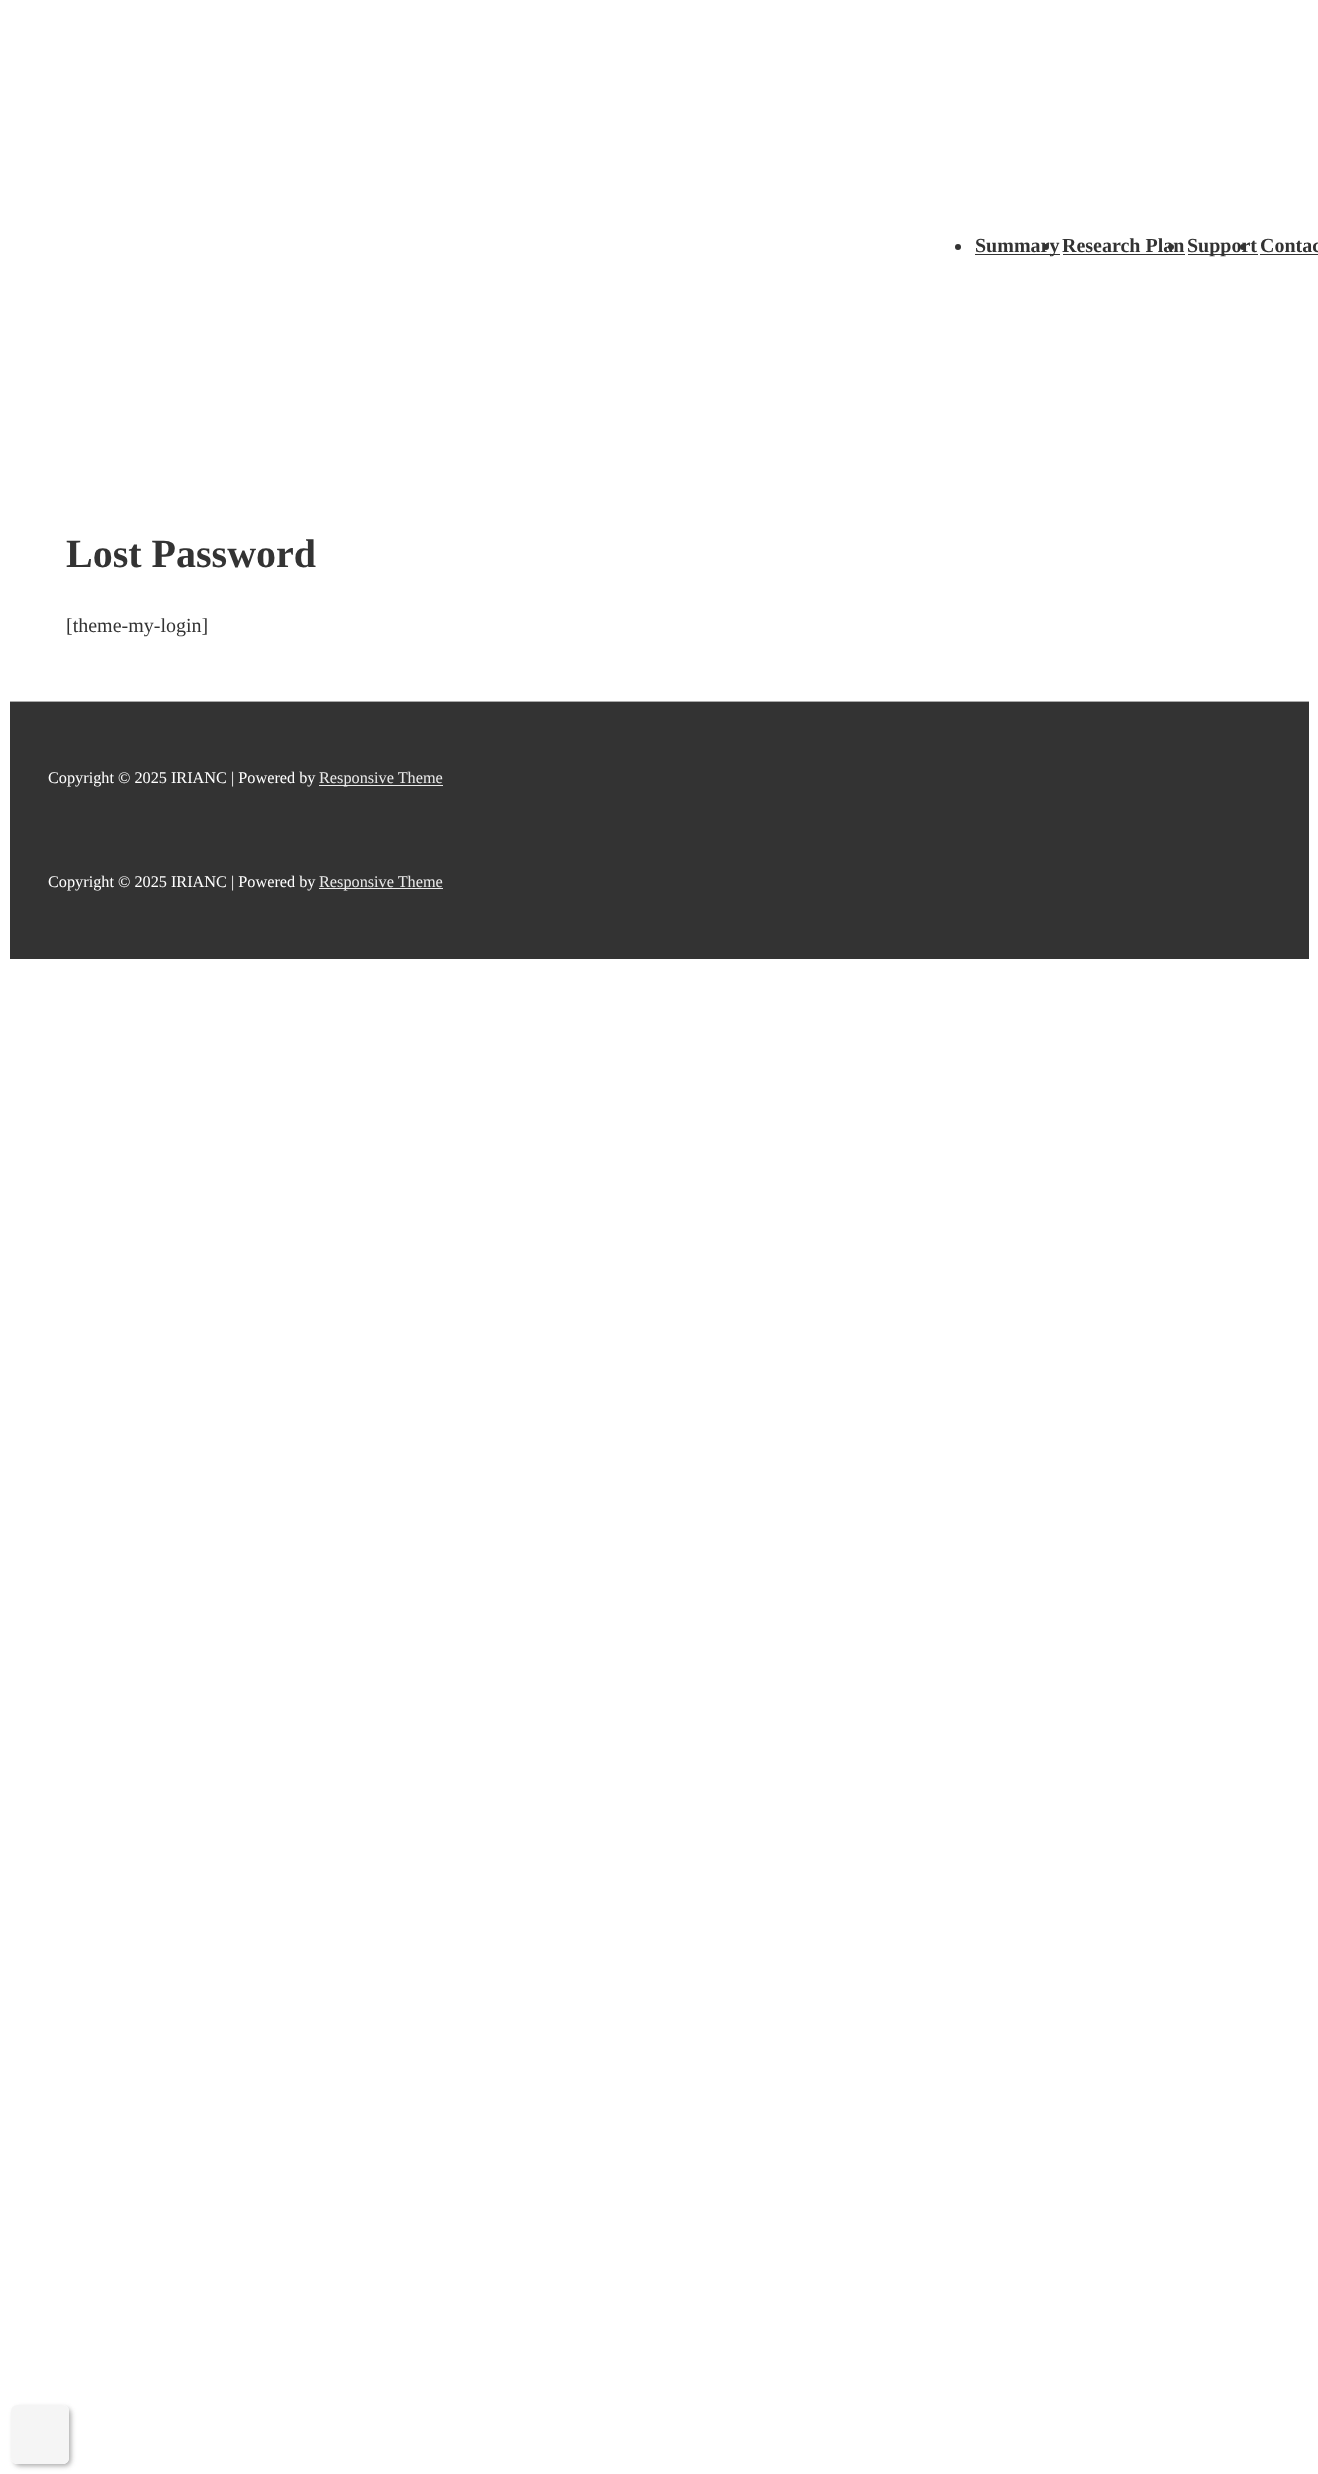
<svg xmlns="http://www.w3.org/2000/svg" width="1318" height="2474">
<style>
.a{font:bold 20px Liberation Serif;fill:#333}
.b{font:bold 40px Liberation Serif;fill:#333}
.c{font:20px Liberation Serif;fill:#333}
.d{font:16.25px Liberation Serif;fill:#fff}
.e{font:16.25px Liberation Serif;fill:#eaeaea}
</style>
<defs>
<clipPath id="clip1"><path d="M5 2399h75v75h-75zm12 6h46c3.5 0 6 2.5 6 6v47c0 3.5-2.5 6-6 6h-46c-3.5 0-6-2.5-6-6v-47c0-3.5 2.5-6 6-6z" clip-rule="evenodd"/></clipPath>
</defs>
<rect width="100%" height="100%" fill="#fff"/>
<circle fill="#333" cx="958" cy="247" r="3"/>
<path fill="#333" d="M975 254h85v1H975z"/>
<circle fill="#333" cx="1046" cy="247" r="3"/>
<path fill="#333" d="M1063 254h122v1H1063z"/>
<circle fill="#333" cx="1171" cy="247" r="3"/>
<path fill="#333" d="M1188 254h70v1H1188z"/>
<circle fill="#333" cx="1243" cy="247" r="3"/>
<path fill="#333" d="M1260 254h58v1H1260z"/>
<path fill="#333" d="M10 702h1299v257H10z"/>
<path fill="#aaa" d="M10 701h1299v1H10z"/>
<path fill="#eaeaea" d="M319 785h124v1H319z"/>
<path fill="#eaeaea" d="M319 888h124v1H319z"/>
<g clip-path="url(#clip1)">
<rect fill="#4d4d4d78" filter="blur(2.5px)" x="14" y="2408" width="57" height="58" rx="6"/>
</g>
<rect fill="#f5f5f5fc" x="11" y="2405" width="58" height="59" rx="6"/>
<text class="a" x="975" y="252">Summary</text>
<text class="a" x="1062" y="252">Research Plan</text>
<text class="a" x="1187" y="252">Support</text>
<text class="a" x="1260" y="252">Contac</text>
<text class="b" x="66" y="567">Lost Password</text>
<text class="c" x="66" y="632">[theme-my-login]</text>
<text class="d" x="48" y="783">Copyright © 2025 IRIANC | Powered by</text>
<text class="e" x="319" y="783">Responsive Theme</text>
<text class="d" x="48" y="887">Copyright © 2025 IRIANC | Powered by</text>
<text class="e" x="319" y="887">Responsive Theme</text>
</svg>
